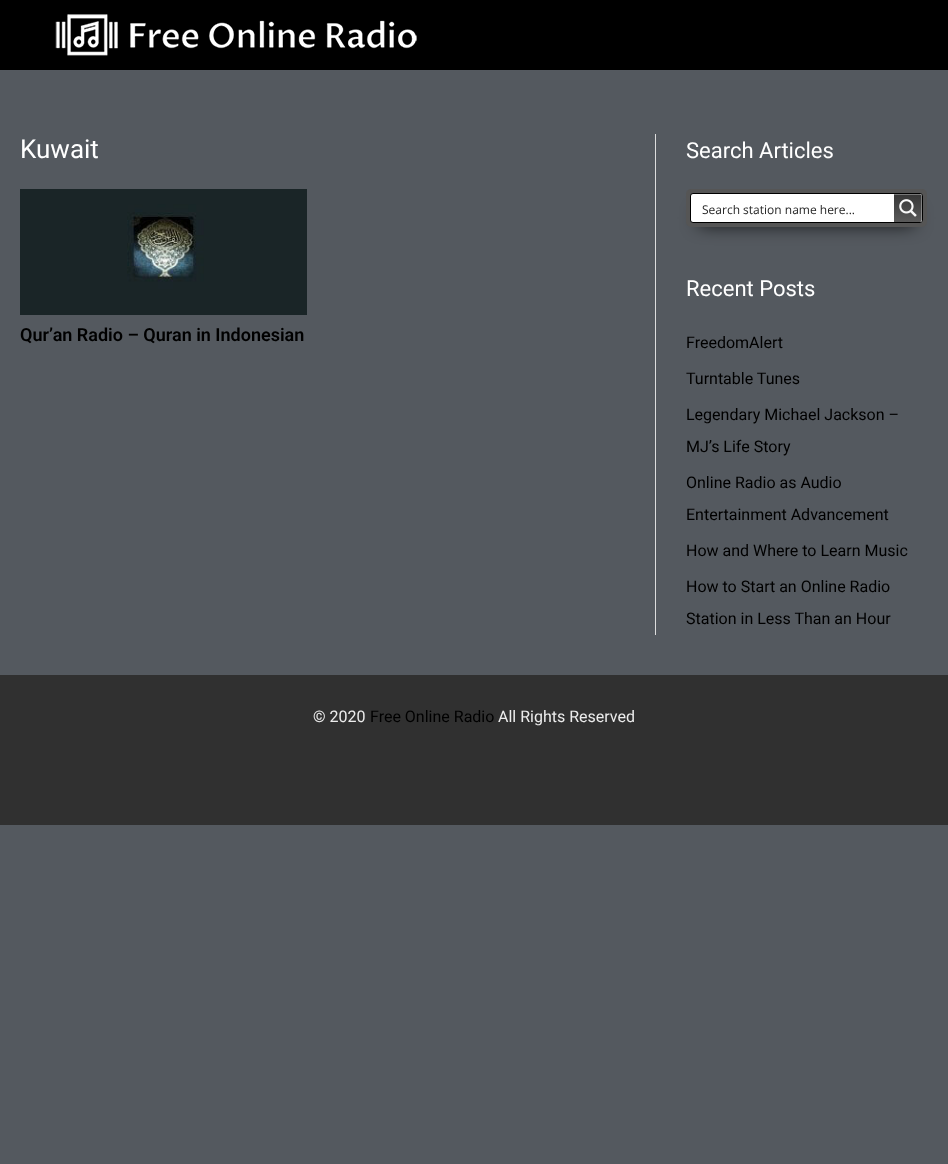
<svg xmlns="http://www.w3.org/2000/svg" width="948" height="1164">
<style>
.a{font:26px Roboto;fill:#fff}
.b{font:600 18px Roboto;fill:#000}
.c{font:22px Roboto;fill:#fff}
.d{font:12px Open Sans;fill:#262626}
.e{font:16px Roboto;fill:#000}
.f{font:16px Roboto;fill:#ececec}
</style>
<defs>
<linearGradient id="g1" gradientUnits="userSpaceOnUse" x1="908" y1="194" x2="908" y2="222"><stop offset="0" stop-color="#363636"/><stop offset="1" stop-color="#5a5a5a"/></linearGradient>
<clipPath id="clip1"><path d="M894 194h28v28H894z"/></clipPath>
</defs>
<rect width="100%" height="100%" fill="#54595f"/>
<path fill="#000" d="M0 0h948v70H0z"/>
<image href="1.png" x="55" y="14" width="362" height="42"/>
<image href="2.png" x="20" y="189" width="287" height="126"/>
<path fill="#ddd" d="M655 134h1v501H655z"/>
<path fill="#000" filter="blur(9px)" d="M699 212h215v12H699z"/>
<rect fill="#555" x="686" y="189" width="241" height="38" rx="5"/>
<rect fill="#fff" stroke="#000" x="690.5" y="193.5" width="232" height="29" rx="2.5"/>
<path fill="url(#g1)" d="M894 194h26c1 0 2 1 2 2v24c0 1-1 2-2 2h-26z"/>
<g clip-path="url(#clip1)">
<path fill="#ffffff54" d="M893 195v27h-98v-28h126l1 2v25l-1 1v-27z"/>
</g>
<image href="3.png" x="899" y="199" width="18" height="18"/>
<path fill="#303030" d="M0 675h948v150H0z"/>
<text class="a" x="20" y="158">Kuwait</text>
<text class="b" x="20" y="341">Qur’an Radio – Quran in Indonesian</text>
<text class="c" x="686" y="158">Search Articles</text>
<text class="d" x="702" y="214">Search station name here...</text>
<text class="c" x="686" y="296">Recent Posts</text>
<text class="e" x="686" y="348">FreedomAlert</text>
<text class="e" x="686" y="384">Turntable Tunes</text>
<text class="e" x="686" y="420">Legendary Michael Jackson –</text>
<text class="e" x="686" y="452">MJ’s Life Story</text>
<text class="e" x="686" y="488">Online Radio as Audio</text>
<text class="e" x="686" y="520">Entertainment Advancement</text>
<text class="e" x="686" y="556">How and Where to Learn Music</text>
<text class="e" x="686" y="592">How to Start an Online Radio</text>
<text class="e" x="686" y="624">Station in Less Than an Hour</text>
<text class="f" x="313" y="722">© 2020</text>
<text class="e" x="370" y="722">Free Online Radio</text>
<text class="f" x="498" y="722">All Rights Reserved</text>
</svg>
